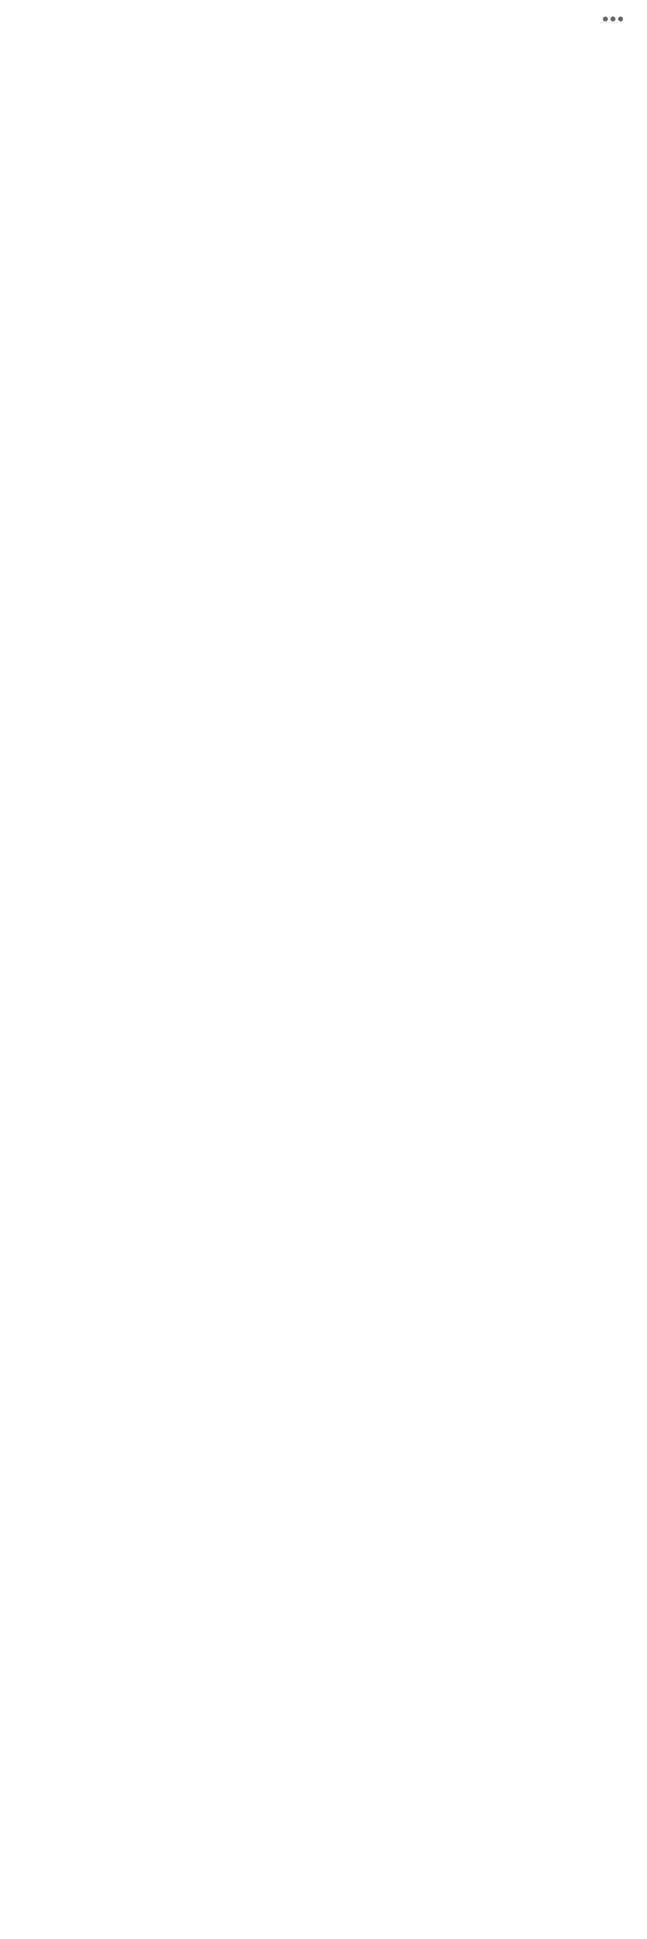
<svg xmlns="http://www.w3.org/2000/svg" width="647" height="1939">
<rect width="100%" height="100%" fill="#fff"/>
<image href="1.png" x="603" y="16" width="20" height="6"/>
</svg>
